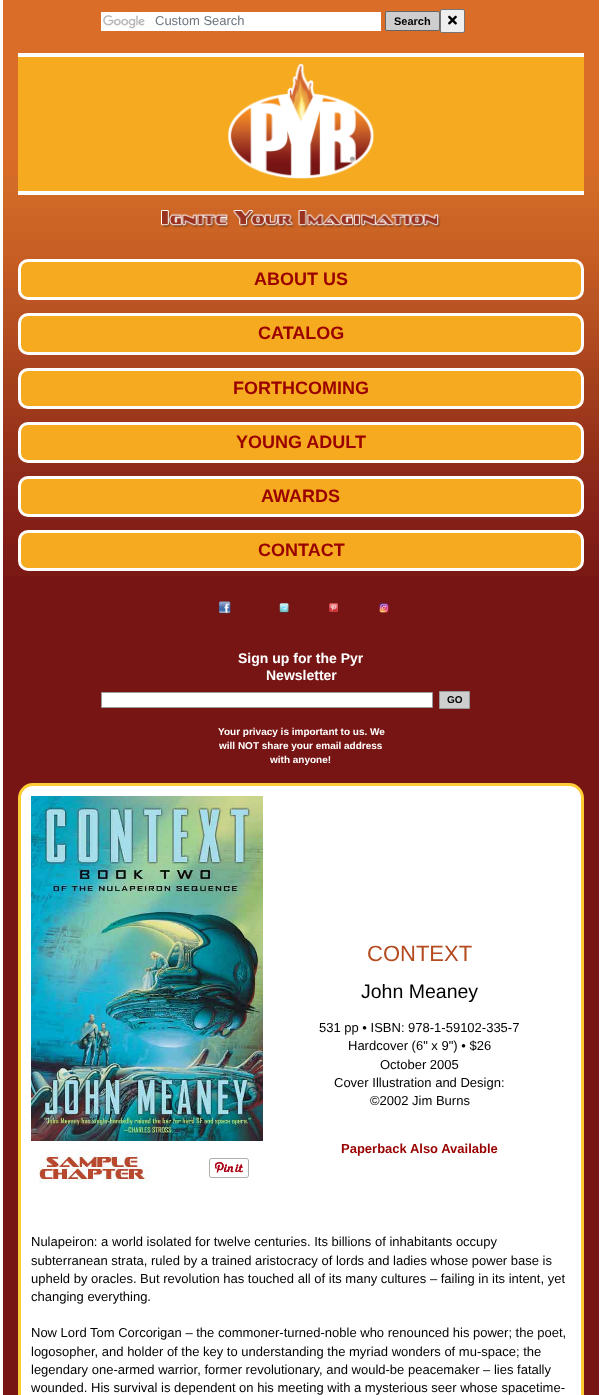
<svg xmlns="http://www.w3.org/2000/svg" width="602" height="1395">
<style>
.a{font:13px Liberation Sans;fill:#6c757d}
.b{font:bold 11px Liberation Sans;fill:#000}
.c{font:bold 18px Liberation Sans;fill:#900}
.d{font:bold 14px Liberation Sans;fill:#fff}
.e{font:bold 10px Liberation Sans;fill:#000}
.f{font:bold 10px Liberation Sans;fill:#fff}
.g{font:22px Liberation Sans;fill:#b34b1f}
.h{font:19.5px Liberation Sans;fill:#000}
.i{font:13px Liberation Sans;fill:#000}
.j{font:bold 13px Liberation Sans;fill:#900}
</style>
<rect width="100%" height="100%" fill="#771514"/>
<image href="1.png" x="3" y="0" width="596" height="576"/>
<path fill="#fff" d="M599 0h3v1395H599z"/>
<path fill="#fff" d="M0 0h3v1395H0z"/>
<path fill="#fff" d="M101 12h280v19H101z"/>
<image href="2.png" x="103" y="15" width="42" height="14"/>
<rect fill="#cecece" stroke="#666" x="385.5" y="11.5" width="54" height="19" rx="1.5"/>
<rect fill="#efefef" stroke="#767676" x="440.5" y="9.5" width="24" height="23" rx="1.5"/>
<image href="3.png" x="448" y="15" width="9" height="10"/>
<path fill="#f5aa1f" d="M18 57h566v134H18z"/>
<path fill="#fff" d="M18 53h566v4H18z"/>
<path fill="#fff" d="M18 191h566v4H18z"/>
<image href="4.png" x="228" y="63" width="146" height="116"/>
<image href="5.png" x="161" y="210" width="280" height="18"/>
<rect fill="#f5aa1f" stroke="#fff" stroke-width="3" x="19.5" y="260.5" width="563" height="38" rx="8.5"/>
<rect fill="#f5aa1f" stroke="#fff" stroke-width="3" x="19.5" y="314.5" width="563" height="39" rx="8.5"/>
<rect fill="#f5aa1f" stroke="#fff" stroke-width="3" x="19.5" y="369.5" width="563" height="38" rx="8.5"/>
<rect fill="#f5aa1f" stroke="#fff" stroke-width="3" x="19.5" y="423.5" width="563" height="38" rx="8.5"/>
<rect fill="#f5aa1f" stroke="#fff" stroke-width="3" x="19.5" y="477.5" width="563" height="38" rx="8.5"/>
<rect fill="#f5aa1f" stroke="#fff" stroke-width="3" x="19.5" y="531.5" width="563" height="38" rx="8.5"/>
<image href="6.png" x="218" y="601" width="13" height="13"/>
<image href="7.png" x="279" y="603" width="10" height="10"/>
<image href="8.png" x="329" y="603" width="9" height="9"/>
<image href="9.png" x="379" y="603" width="10" height="10"/>
<path fill="#fff" stroke="#999" d="M101.5 692.5h331v15H101.5z"/>
<path fill="#cecece" stroke="#999" d="M439.5 691.5h30v17H439.5z"/>
<rect fill="#fff" stroke="#fc3" stroke-width="3" x="19.5" y="784.5" width="563" height="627" rx="13.5"/>
<image href="10.png" x="31" y="796" width="232" height="345"/>
<image href="11.png" x="39" y="1151" width="112" height="32"/>
<image href="12.png" x="209" y="1158" width="40" height="20"/>
<text class="a" x="155" y="25">Custom Search</text>
<text class="b" x="394" y="25">Search</text>
<text class="c" x="254" y="285">ABOUT US</text>
<text class="c" x="258" y="339">CATALOG</text>
<text class="c" x="233" y="394">FORTHCOMING</text>
<text class="c" x="236" y="448">YOUNG ADULT</text>
<text class="c" x="261" y="502">AWARDS</text>
<text class="c" x="258" y="556">CONTACT</text>
<text class="d" x="238" y="663">Sign up for the Pyr</text>
<text class="d" x="266" y="680">Newsletter</text>
<text class="e" x="447" y="703">GO</text>
<text class="f" x="218" y="735">Your privacy is important to us. We</text>
<text class="f" x="219" y="749">will NOT share your email address</text>
<text class="f" x="270" y="763">with anyone!</text>
<text class="g" x="367" y="961">CONTEXT</text>
<text class="h" x="361" y="998">John Meaney</text>
<text class="i" x="319" y="1032">531 pp • ISBN: 978-1-59102-335-7</text>
<text class="i" x="348" y="1050">Hardcover (6" x 9") • $26</text>
<text class="i" x="380" y="1069">October 2005</text>
<text class="i" x="334" y="1087">Cover Illustration and Design:</text>
<text class="i" x="370" y="1105">©2002 Jim Burns</text>
<text class="j" x="341" y="1153">Paperback Also Available</text>
<text class="i" x="31" y="1246">Nulapeiron: a world isolated for twelve centuries. Its billions of inhabitants occupy</text>
<text class="i" x="31" y="1265">subterranean strata, ruled by a trained aristocracy of lords and ladies whose power base is</text>
<text class="i" x="31" y="1283">upheld by oracles. But revolution has touched all of its many cultures – failing in its intent, yet</text>
<text class="i" x="31" y="1301">changing everything.</text>
<text class="i" x="31" y="1337">Now Lord Tom Corcorigan – the commoner-turned-noble who renounced his power; the poet,</text>
<text class="i" x="31" y="1356">logosopher, and holder of the key to understanding the myriad wonders of mu-space; the</text>
<text class="i" x="31" y="1374">legendary one-armed warrior, former revolutionary, and would-be peacemaker – lies fatally</text>
<text class="i" x="31" y="1392">wounded. His survival is dependent on his meeting with a mysterious seer whose spacetime-</text>
</svg>
